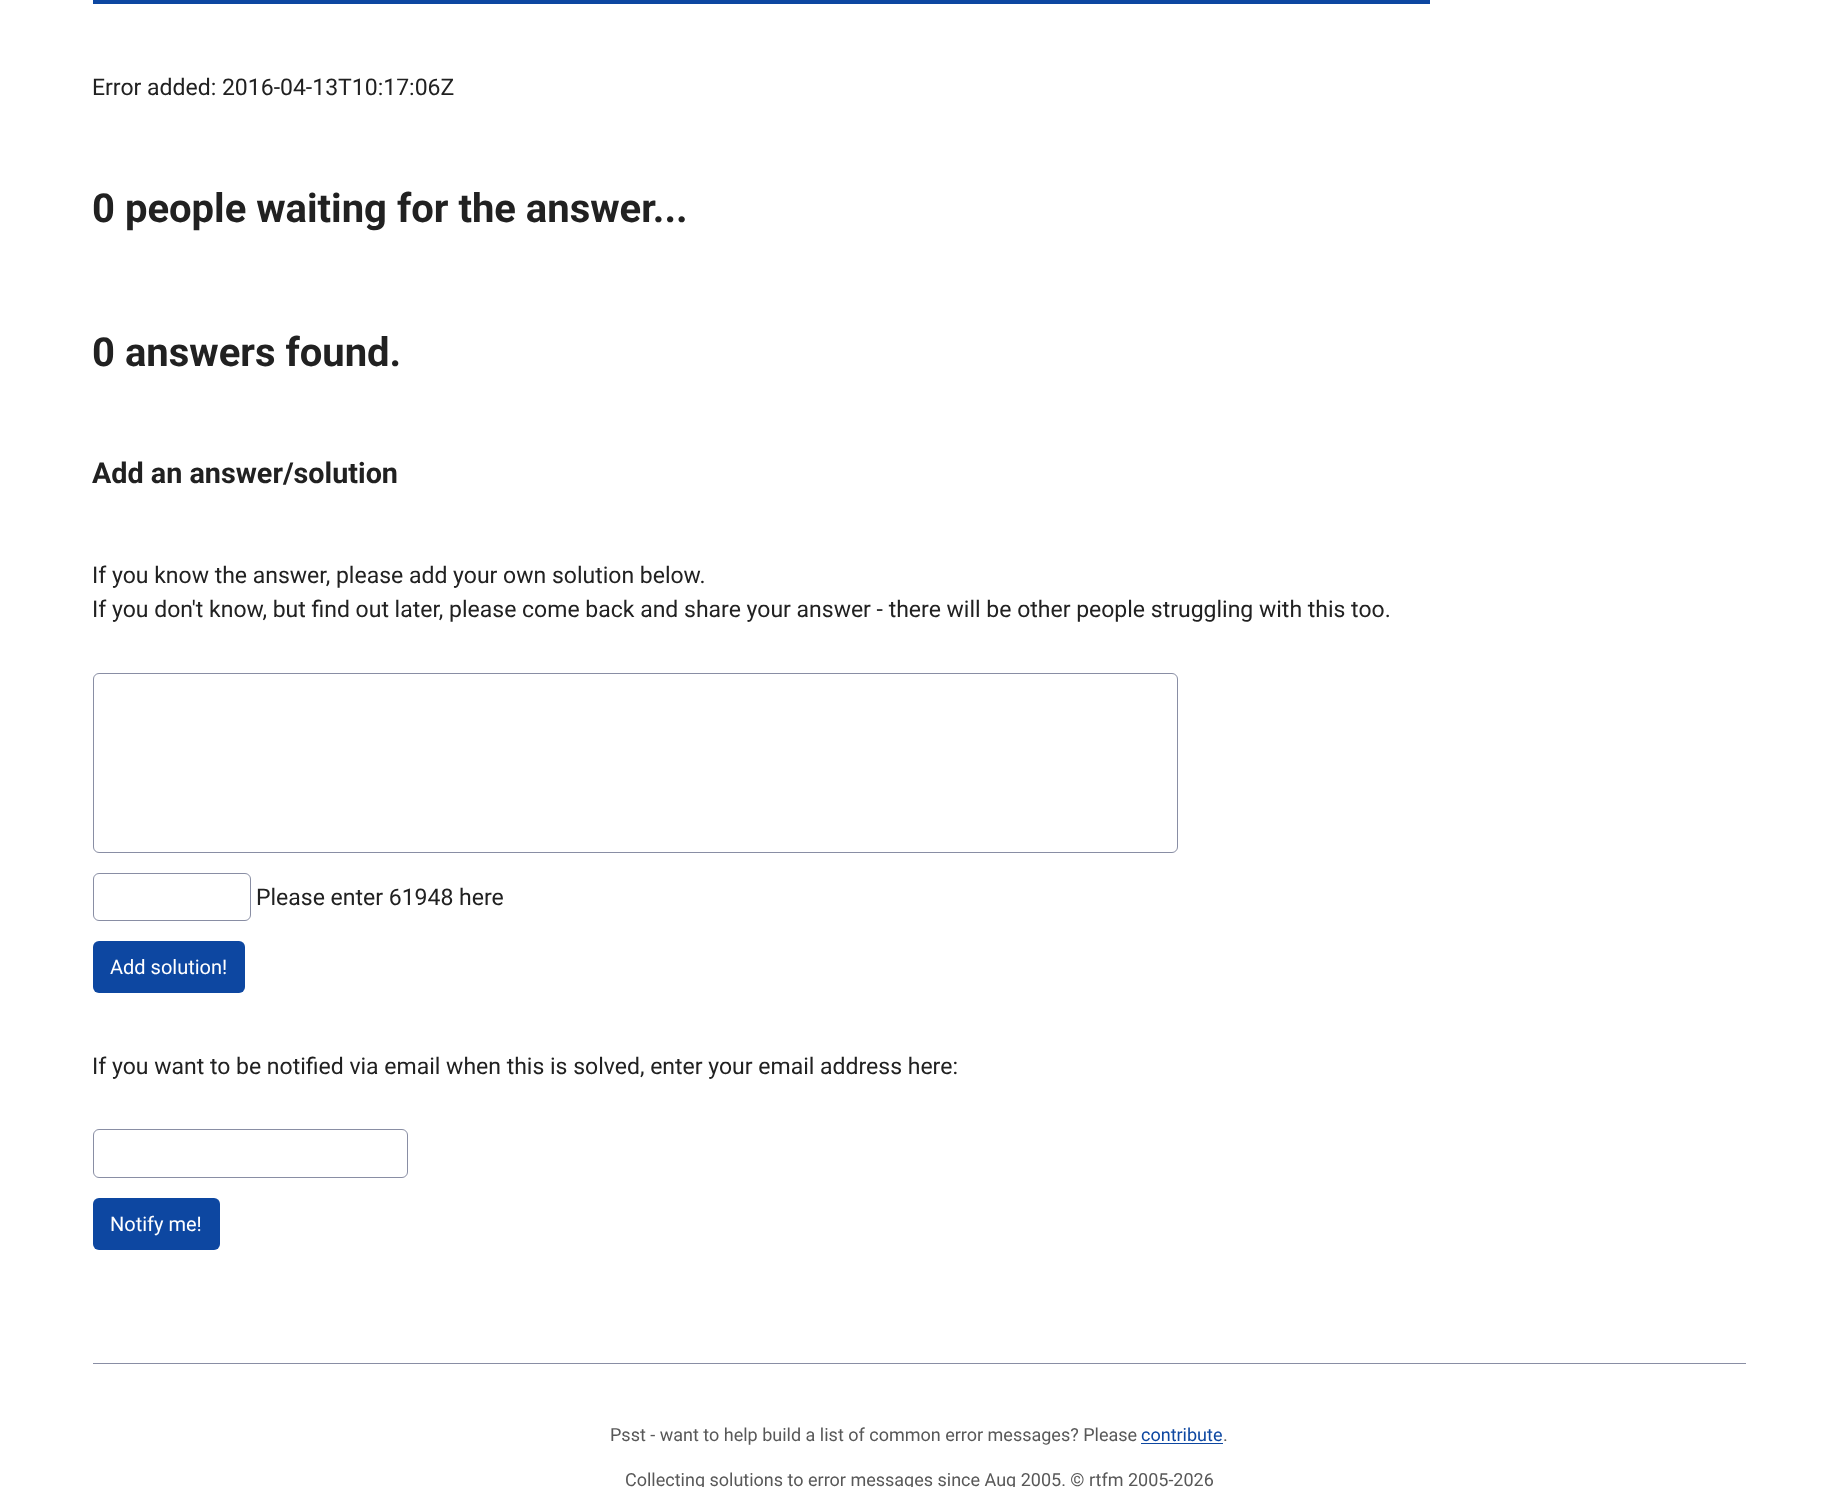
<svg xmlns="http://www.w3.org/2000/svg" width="1837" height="1487">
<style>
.a{font:23px Roboto;fill:#212121}
.b{font:bold 40px Roboto;fill:#212121}
.c{font:bold 28.75px Roboto;fill:#212121}
.d{font:20px Roboto;fill:#fff}
.e{font:18px Roboto;fill:#585858}
.f{font:18px Roboto;fill:#0d47a1}
</style>
<rect width="100%" height="100%" fill="#fff"/>
<path fill="#0d47a1" d="M93 0h1337v4H93z"/>
<rect fill="none" stroke="#898ea4" x="93.5" y="673.5" width="1084" height="179" rx="5.5"/>
<rect fill="none" stroke="#898ea4" x="93.5" y="873.5" width="157" height="47" rx="5.5"/>
<rect fill="#0d47a1" x="93" y="941" width="152" height="52" rx="6"/>
<rect fill="none" stroke="#898ea4" x="93.5" y="1129.5" width="314" height="48" rx="5.5"/>
<rect fill="#0d47a1" x="93" y="1198" width="127" height="52" rx="6"/>
<path fill="#898ea4" d="M93 1363h1653v1H93z"/>
<path fill="#0d47a1" d="M1141 1443h82v1H1141z"/>
<text class="a" x="92" y="95">Error added: 2016-04-13T10:17:06Z</text>
<text class="b" x="92" y="222">0 people waiting for the answer...</text>
<text class="b" x="92" y="366">0 answers found.</text>
<text class="c" x="92" y="483">Add an answer/solution</text>
<text class="a" x="92" y="583">If you know the answer, please add your own solution below.</text>
<text class="a" x="92" y="617">If you don't know, but find out later, please come back and share your answer - there will be other people struggling with this too.</text>
<text class="a" x="256" y="905">Please enter 61948 here</text>
<text class="d" x="110" y="974">Add solution!</text>
<text class="a" x="92" y="1074">If you want to be notified via email when this is solved, enter your email address here:</text>
<text class="d" x="110" y="1231">Notify me!</text>
<text class="e" x="610" y="1441">Psst - want to help build a list of common error messages? Please</text>
<text class="f" x="1141" y="1441">contribute</text>
<text class="e" x="1223" y="1441">.</text>
<text class="e" x="625" y="1486">Collecting solutions to error messages since Aug 2005. © rtfm 2005-2026</text>
</svg>
